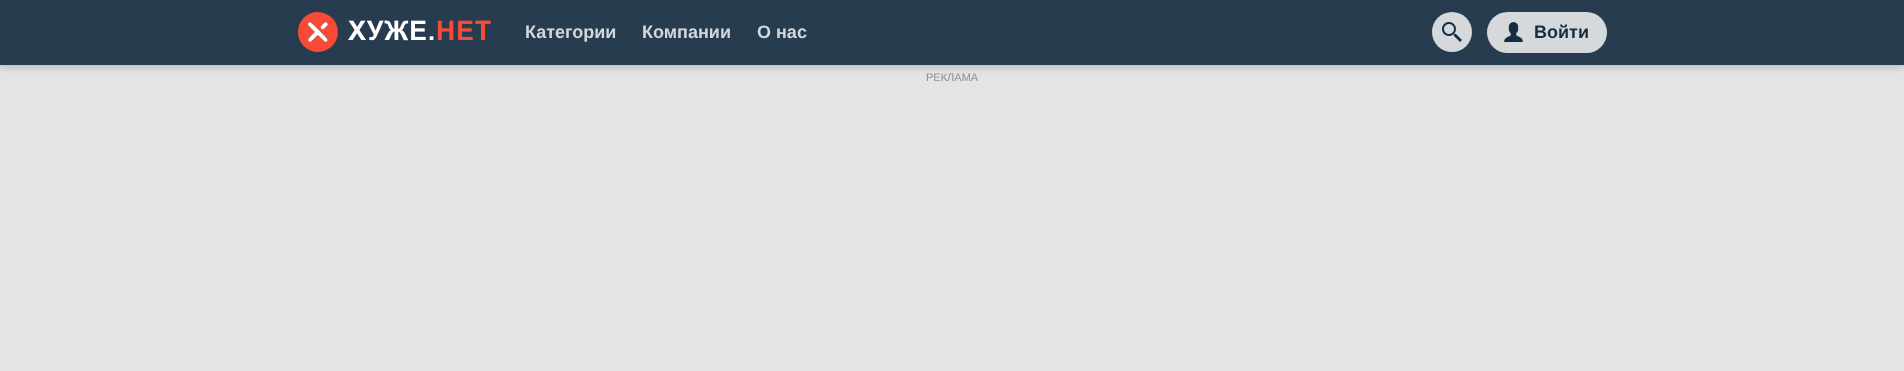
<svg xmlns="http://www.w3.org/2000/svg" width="1904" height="371">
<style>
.a{font:bold 18px Liberation Sans;fill:#d4d8dc}
.b{font:bold 18px Liberation Sans;fill:#152c43}
.c{font:11px Liberation Sans;fill:#8a8d92}
</style>
<rect width="100%" height="100%" fill="#e2e4e6"/>
<path fill="#00000029" filter="blur(3px)" d="M0 3h1904v65H0z"/>
<path fill="#283c4f" d="M0 0h1904v65H0z"/>
<image href="1.png" x="298" y="12" width="193" height="40"/>
<circle fill="#d5d9dc" cx="1452" cy="32" r="20"/>
<image href="2.png" x="1442" y="22" width="20" height="20"/>
<rect fill="#d5d9dc" x="1487" y="12" width="120" height="41" rx="20.5"/>
<image href="3.png" x="1504" y="22" width="19" height="20"/>
<text class="a" x="525" y="38">Категории</text>
<text class="a" x="642" y="38">Компании</text>
<text class="a" x="757" y="38">О нас</text>
<text class="b" x="1534" y="38">Войти</text>
<text class="c" x="926" y="81">РЕКЛАМА</text>
</svg>
